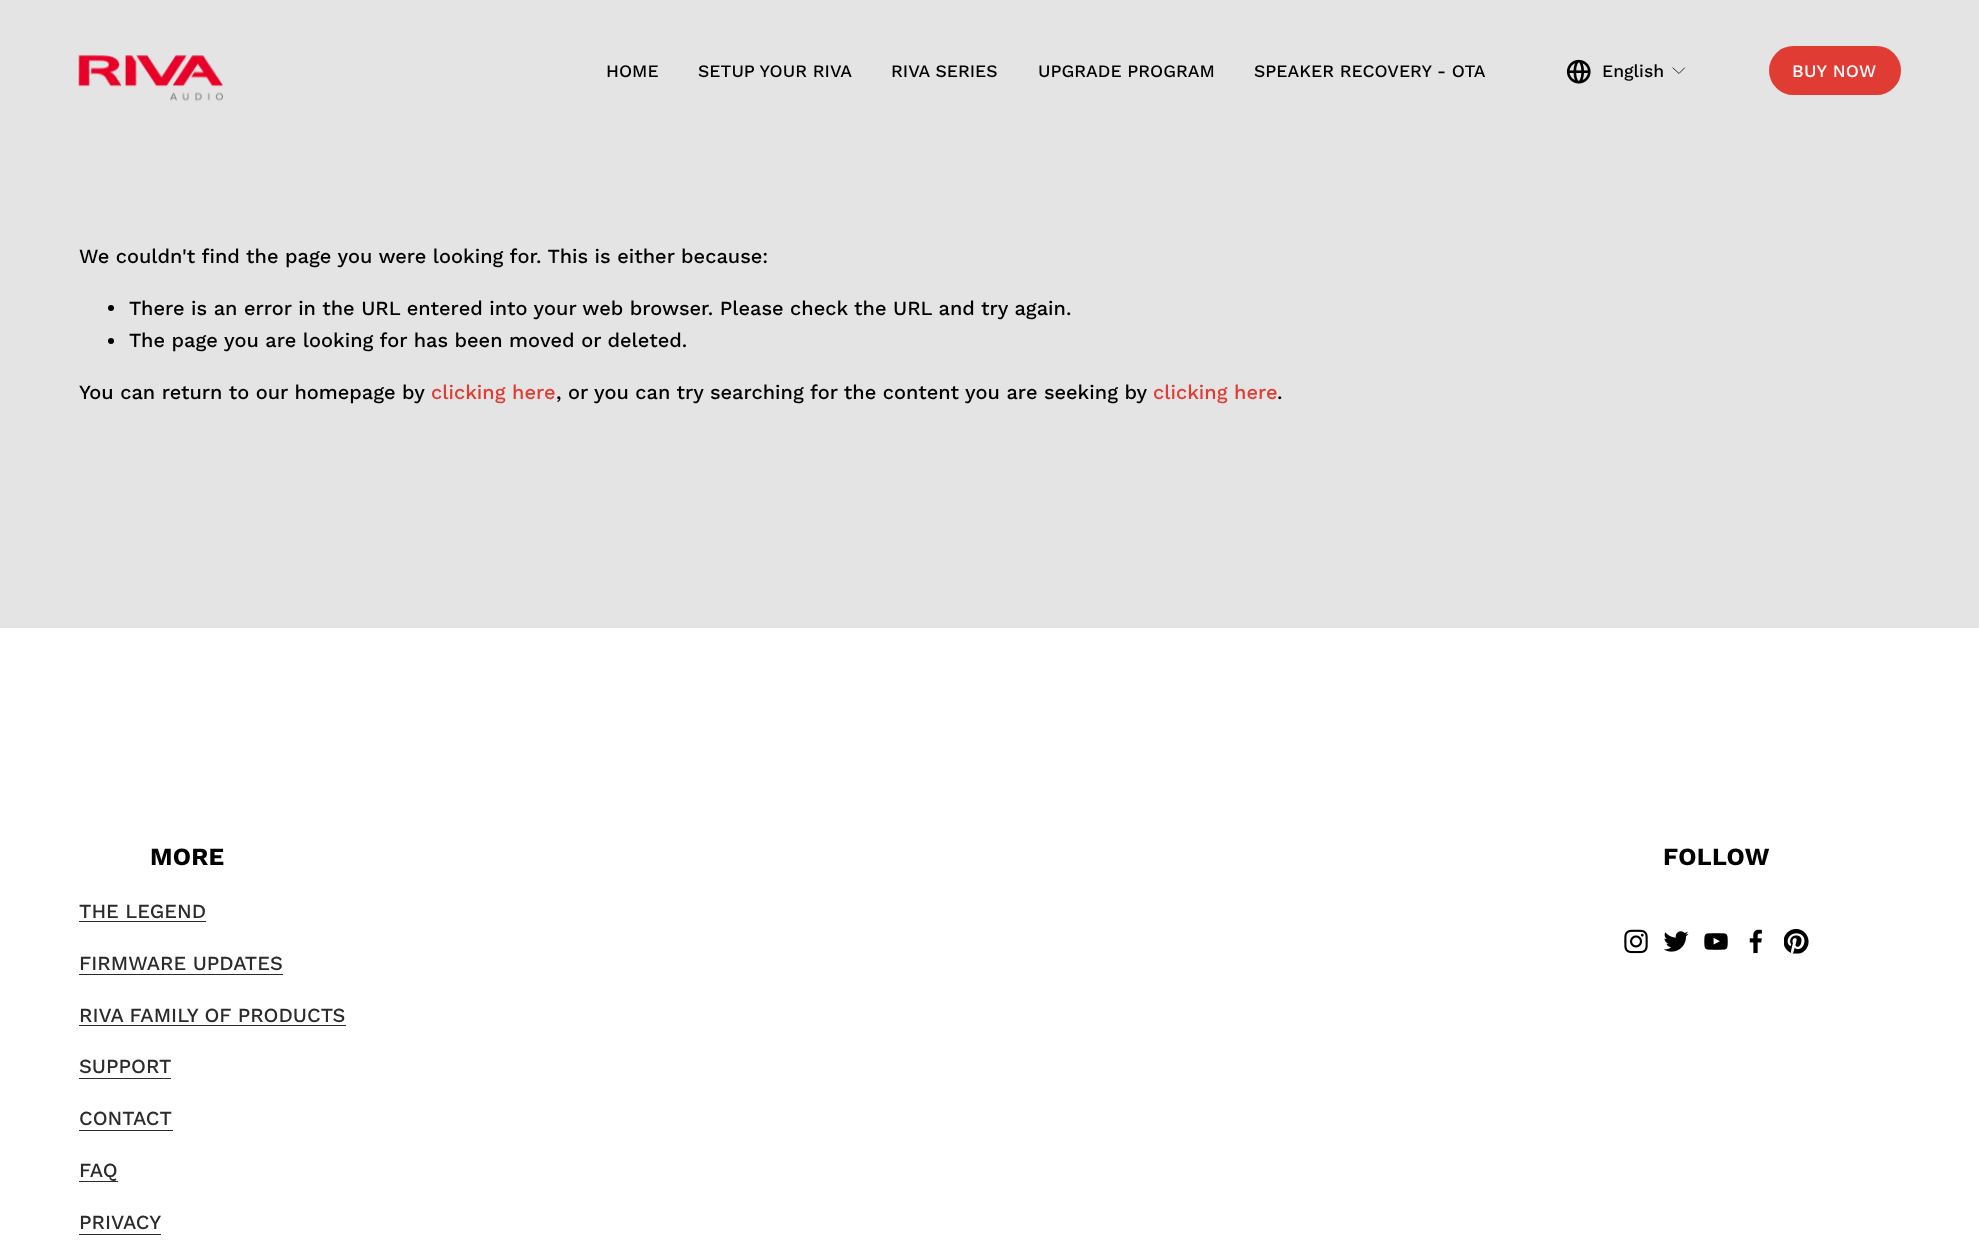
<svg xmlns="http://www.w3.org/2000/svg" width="1979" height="1258">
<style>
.a{font:500 17.6px Work Sans;fill:#000}
.b{font:500 17.6px Work Sans;letter-spacing:0.25px;fill:#fff}
.c{font:500 20px Work Sans;fill:#000}
.d{font:500 20px Work Sans;fill:#e13c33}
.e{font:bold 24.75px Work Sans;letter-spacing:0.25px;fill:#000}
.f{font:500 20px Work Sans;fill:#2b2b2b}
</style>
<rect width="100%" height="100%" fill="#e4e4e4"/>
<image href="1.png" x="78" y="55" width="145" height="47"/>
<image href="2.png" x="1566" y="59" width="25" height="25"/>
<path fill="none" stroke="#000" stroke-width="0.8" stroke-linecap="square" d="M1684.5 68l-5.5 5.5l-6-5.5"/>
<rect fill="#e13c33" x="1769" y="46" width="132" height="49" rx="24.5"/>
<circle fill="#000" cx="111" cy="308" r="3"/>
<circle fill="#000" cx="111" cy="341" r="3"/>
<path fill="#fff" d="M0 628h1979v630H0z"/>
<path fill="#2b2b2b" d="M79 921h127v1H79z"/>
<path fill="#2b2b2b" d="M79 974h204v1H79z"/>
<path fill="#2b2b2b" d="M79 1025h267v1H79z"/>
<path fill="#2b2b2b" d="M79 1078h92v1H79z"/>
<path fill="#2b2b2b" d="M79 1130h94v1H79z"/>
<path fill="#2b2b2b" d="M79 1181h39v1H79z"/>
<path fill="#2b2b2b" d="M79 1234h82v1H79z"/>
<image href="3.png" x="1624" y="929" width="24" height="25"/>
<image href="4.png" x="1664" y="931" width="25" height="21"/>
<image href="5.png" x="1704" y="933" width="24" height="17"/>
<image href="6.png" x="1749" y="929" width="13" height="25"/>
<image href="7.png" x="1784" y="929" width="25" height="25"/>
<text class="a" x="606" y="77">HOME</text>
<text class="a" x="698" y="77">SETUP YOUR RIVA</text>
<text class="a" x="891" y="77">RIVA SERIES</text>
<text class="a" x="1038" y="77">UPGRADE PROGRAM</text>
<text class="a" x="1254" y="77">SPEAKER RECOVERY - OTA</text>
<text class="a" x="1602" y="77">English</text>
<text class="b" x="1792" y="77">BUY NOW</text>
<text class="c" x="79" y="263">We couldn't find the page you were looking for. This is either because:</text>
<text class="c" x="129" y="315">There is an error in the URL entered into your web browser. Please check the URL and try again.</text>
<text class="c" x="129" y="347">The page you are looking for has been moved or deleted.</text>
<text class="c" x="79" y="399">You can return to our homepage by</text>
<text class="d" x="431" y="399">clicking here</text>
<text class="c" x="556" y="399">, or you can try searching for the content you are seeking by</text>
<text class="d" x="1153" y="399">clicking here</text>
<text class="c" x="1277" y="399">.</text>
<text class="e" x="150" y="865">MORE</text>
<text class="e" x="1663" y="865">FOLLOW</text>
<text class="f" x="79" y="918">THE LEGEND</text>
<text class="f" x="79" y="970">FIRMWARE UPDATES</text>
<text class="f" x="79" y="1022">RIVA FAMILY OF PRODUCTS</text>
<text class="f" x="79" y="1073">SUPPORT</text>
<text class="f" x="79" y="1125">CONTACT</text>
<text class="f" x="79" y="1177">FAQ</text>
<text class="f" x="79" y="1229">PRIVACY</text>
</svg>
